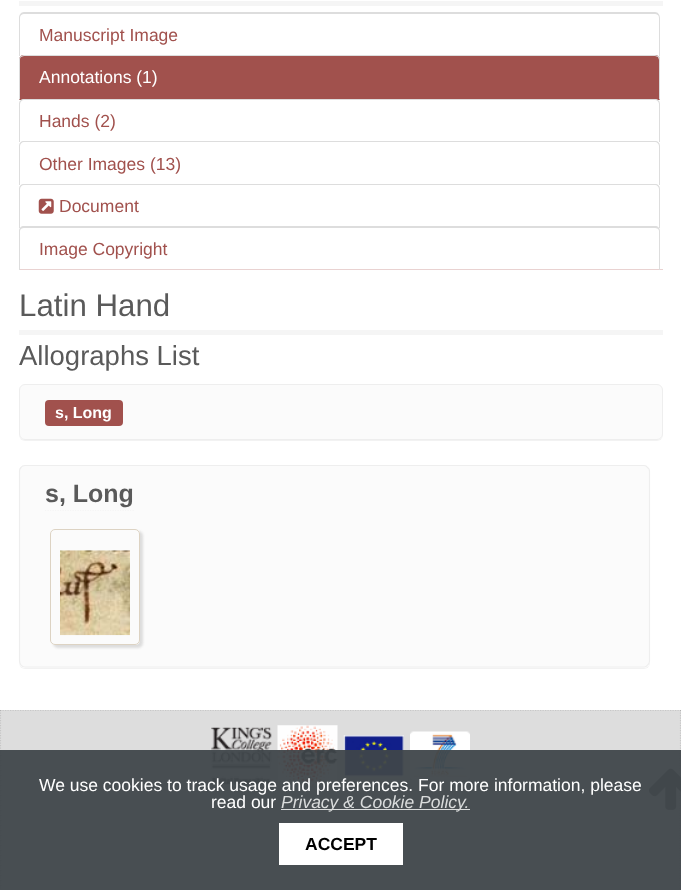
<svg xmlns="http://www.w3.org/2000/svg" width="681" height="890">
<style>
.a{font:17.5px Liberation Sans;fill:#a1514d}
.b{font:17.5px Liberation Sans;fill:#fff}
.c{font:31.25px Liberation Sans;fill:#5a5a5a}
.d{font:27.5px Liberation Sans;fill:#5a5a5a}
.e{font:bold 16px Liberation Sans;fill:#fff}
.f{font:bold 25px Liberation Sans;fill:#5a5a5a}
.g{font:italic 17.5px Liberation Sans;fill:#dadcdc}
.h{font:bold 17.5px Liberation Sans;fill:#000}
</style>
<defs>
<clipPath id="clip1"><path d="M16 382h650v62h-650zm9 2h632c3.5 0 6 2.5 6 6v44c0 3.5-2.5 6-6 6h-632c-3.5 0-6-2.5-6-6v-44c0-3.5 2.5-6 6-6z" clip-rule="evenodd"/></clipPath>
<clipPath id="clip2"><path d="M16 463h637v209h-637zm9 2h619c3.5 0 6 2.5 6 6v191c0 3.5-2.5 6-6 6h-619c-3.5 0-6-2.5-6-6v-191c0-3.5 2.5-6 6-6z" clip-rule="evenodd"/></clipPath>
<clipPath id="clip3"><path d="M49 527h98v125h-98zm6 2h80c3 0 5 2 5 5v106c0 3-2 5-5 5h-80c-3 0-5-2-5-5v-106c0-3 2-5 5-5z" clip-rule="evenodd"/></clipPath>
</defs>
<rect width="100%" height="100%" fill="#fff"/>
<path fill="#f5f5f5" d="M19 1h644v5H19z"/>
<path fill="#e9d2d1" d="M19 269h644v1H19z"/>
<path fill="#ddd" fill-rule="evenodd" d="M24 12h631c3 0 5 3 5 6v38h-641v-38c0-3 2-6 5-6zm0 2h631c2 0 4 1 4 4v38h-639v-38c0-3 2-4 4-4z"/>
<path fill="#a1514d" d="M24 55h631c3 0 5 2 5 5v40h-641v-40c0-3 2-5 5-5z"/>
<path fill="#ddd" d="M24 55c-2 0-3 1-4 2h1l3-1h631l3 1l1-1c-1 0-3-1-4-1z"/>
<path fill="#ddd" d="M660 100v-40c0-2 0-3-1-4l-1 1c0 1 1 2 1 3v39z"/>
<path fill="#ddd" d="M20 57c-1 0-1 2-1 3v40l1-1v-39c0-1 0-2 1-3z"/>
<path fill="#ddd" fill-rule="evenodd" d="M24 99h631c3 0 5 2 5 5v38h-641v-38c0-3 2-5 5-5zm0 1h631c2 0 4 2 4 4v38h-639v-38c0-2 2-4 4-4z"/>
<path fill="#ddd" fill-rule="evenodd" d="M24 141h631c3 0 5 2 5 5v39h-641v-39c0-3 2-5 5-5zm0 1h631c2 0 4 2 4 4v39h-639v-39c0-2 2-4 4-4z"/>
<path fill="#ddd" fill-rule="evenodd" d="M24 184h631c3 0 5 2 5 5v39h-641v-39c0-3 2-5 5-5zm0 1h631c2 0 4 2 4 4v39h-639v-39c0-2 2-4 4-4z"/>
<image href="1.png" x="38" y="198" width="16" height="16"/>
<path fill="#ddd" fill-rule="evenodd" d="M24 226h631c3 0 5 2 5 5v39h-641v-39c0-3 2-5 5-5zm0 2h631c2 0 4 1 4 3v39h-639v-39c0-2 2-3 4-3z"/>
<path fill="#f5f5f5" d="M19 330h644v5H19z"/>
<g clip-path="url(#clip1)">
<rect fill="#0000000d" filter="blur(0.5px)" x="19" y="385" width="644" height="56" rx="6"/>
</g>
<rect fill="#dcdcdc1a" stroke="#eee" x="19.5" y="384.5" width="643" height="55" rx="5.5"/>
<rect fill="#a1514d" x="45" y="400" width="78" height="26" rx="4"/>
<g clip-path="url(#clip2)">
<rect fill="#0000000d" filter="blur(0.5px)" x="19" y="466" width="631" height="203" rx="6"/>
</g>
<rect fill="#dcdcdc1a" x="19" y="465" width="631" height="203" rx="6"/>
<path fill="none" stroke="#efefef" stroke-width="1.2" d="M647.5 665c-1 1.5-2.5 2-3.5 2h-619c-1.5 0-3-.5-4-2"/>
<path fill="none" stroke="#eee" stroke-width="1.2" d="M21 665c-1-1-1.5-2.5-1.5-4v-190c0-1 .5-2.5 1.5-3.5c1-1.5 2.5-2 4-2h619c1 0 2.5 .5 3.5 2c1.5 1 2 2.5 2 3.5v190c0 1.5-.5 3-2 4"/>
<path fill="none" stroke="#f5f5f5" stroke-width="1.2" stroke-dasharray="1.25 1.25" d="M45 510.5h89"/>
<g clip-path="url(#clip3)">
<rect fill="#ddd" filter="blur(1px)" x="53" y="531" width="90" height="117" rx="5"/>
</g>
<rect fill="none" stroke="#ddd3c3" x="50.5" y="529.5" width="89" height="115" rx="4.5"/>
<image href="2.png" x="60" y="550" width="70" height="86"/>
<path fill="#ddd" d="M0 710h681v180H0z"/>
<path fill="none" stroke="#c7c7c7" stroke-width="1.2" stroke-dasharray="1.25 1.25" d="M0 710.5h681"/>
<path fill="none" stroke="#0000001a" stroke-width="1.2" stroke-dasharray="1.25 1.25" d="M680.5 710v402.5"/>
<image href="3.png" x="649" y="768" width="32" height="42"/>
<path fill="none" stroke="#0000001a" stroke-width="1.2" stroke-dasharray="1.25 1.25" d="M.5 710v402.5"/>
<image href="4.png" x="211" y="727" width="61" height="59"/>
<image href="5.png" x="277" y="725" width="61" height="62"/>
<image href="6.png" x="343" y="735" width="61" height="42"/>
<image href="7.png" x="410" y="731" width="60" height="50"/>
<path fill="#3f464af2" d="M0 750h681v140H0z"/>
<path fill="#dadcdc" d="M281 809h189v1H281z"/>
<path fill="#fff" d="M279 823h124v42H279z"/>
<text class="a" x="39" y="41">Manuscript Image</text>
<text class="b" x="39" y="83">Annotations (1)</text>
<text class="a" x="39" y="127">Hands (2)</text>
<text class="a" x="39" y="170">Other Images (13)</text>
<text class="a" x="59" y="212">Document</text>
<text class="a" x="39" y="255">Image Copyright</text>
<text class="c" x="19" y="316">Latin Hand</text>
<text class="d" x="19" y="365">Allographs List</text>
<text class="e" x="55" y="418">s, Long</text>
<text class="f" x="45" y="502">s, Long</text>
<text class="b" x="39" y="791">We use cookies to track usage and preferences. For more information, please</text>
<text class="b" x="211" y="808">read our</text>
<text class="g" x="281" y="808">Privacy &amp; Cookie Policy.</text>
<text class="h" x="305" y="850">ACCEPT</text>
</svg>
